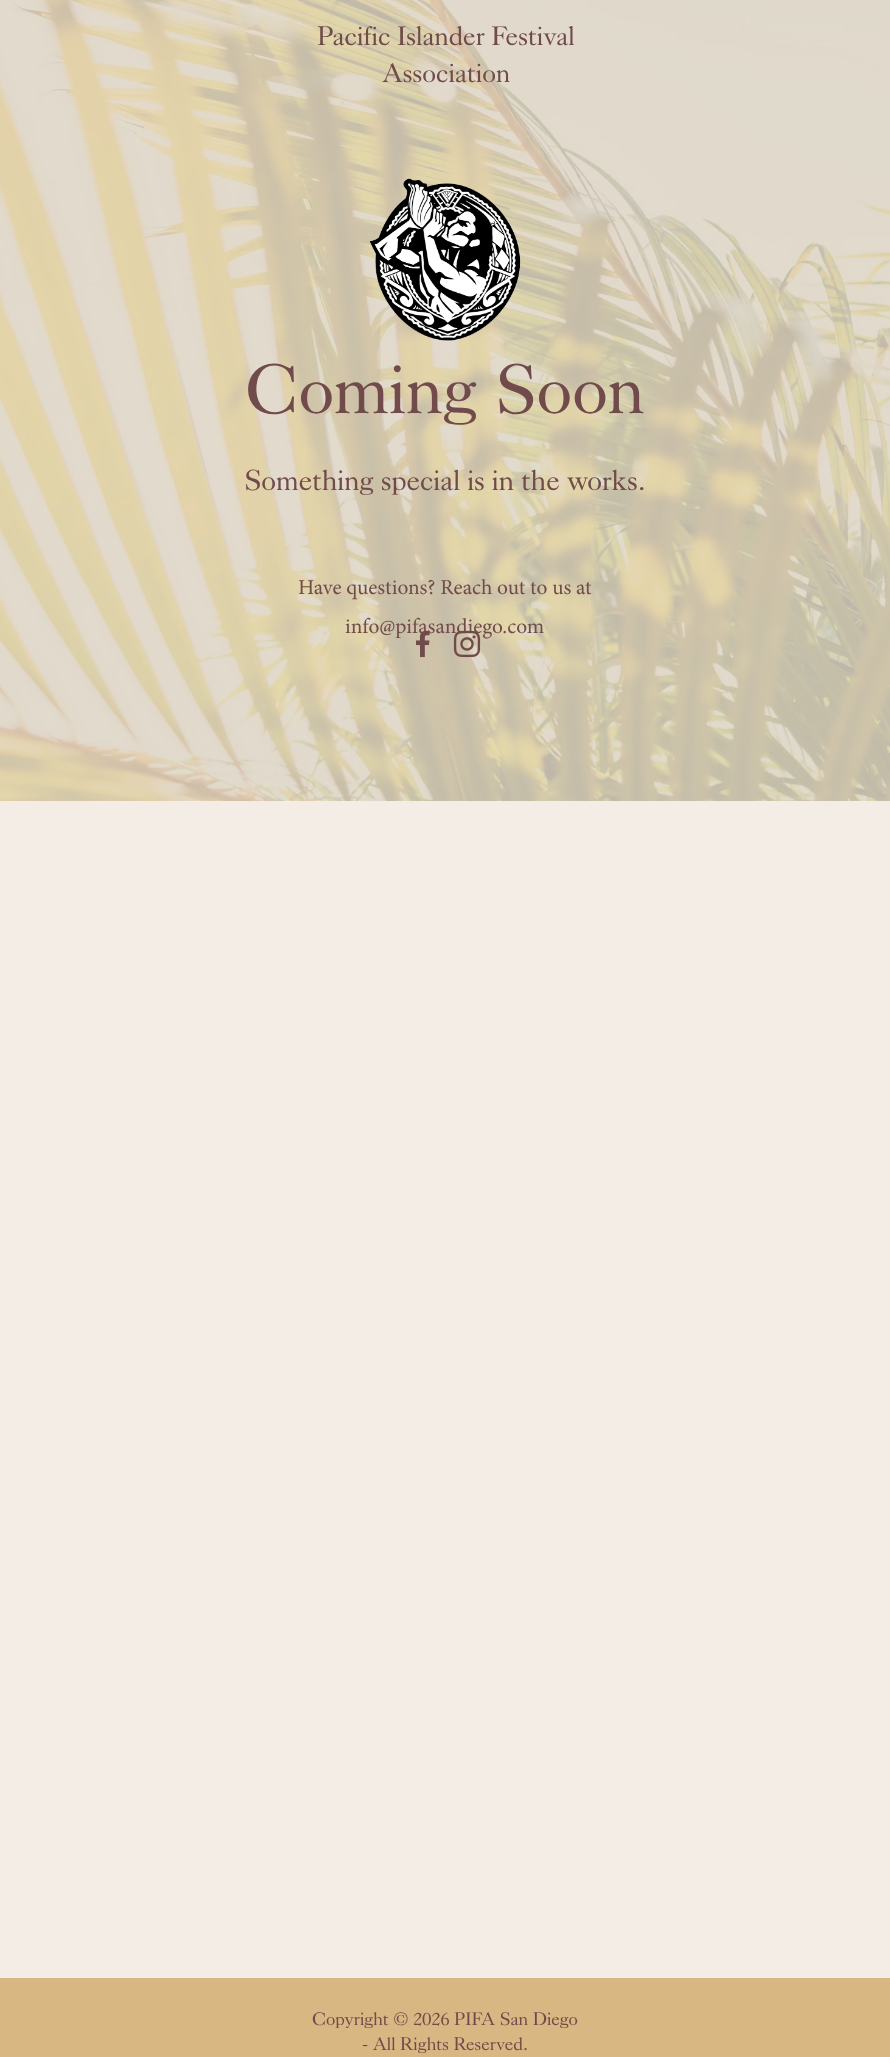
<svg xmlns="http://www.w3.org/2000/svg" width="890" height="2057">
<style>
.a{font:26.75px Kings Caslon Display;fill:#714b4b}
.b{font:69.5px Kings Caslon Display;fill:#714b4b}
.c{font:28.75px Kings Caslon Display;fill:#714b4b}
.d{font:21.3px Minion;fill:#714b4b}
.e{font:18.1px Kings Caslon Display;fill:#714b4b}
</style>
<rect width="100%" height="100%" fill="#f3ede5"/>
<image href="1.png" x="0" y="0" width="890" height="801"/>
<image href="2.png" x="369" y="178" width="152" height="163"/>
<image href="3.png" x="416" y="630" width="14" height="28"/>
<image href="4.png" x="453" y="630" width="28" height="28"/>
<path fill="#d9b783" d="M0 1978h890v79H0z"/>
<text class="a" x="317" y="45">Pacific Islander Festival</text>
<text class="a" x="382" y="82">Association</text>
<text class="b" x="245" y="413">Coming Soon</text>
<text class="c" x="244" y="490">Something special is in the works.</text>
<text class="d" x="298" y="594">Have questions? Reach out to us at</text>
<text class="d" x="345" y="633">info@pifasandiego.com</text>
<text class="e" x="312" y="2025">Copyright © 2026 PIFA San Diego</text>
<text class="e" x="362" y="2050">- All Rights Reserved.</text>
</svg>
